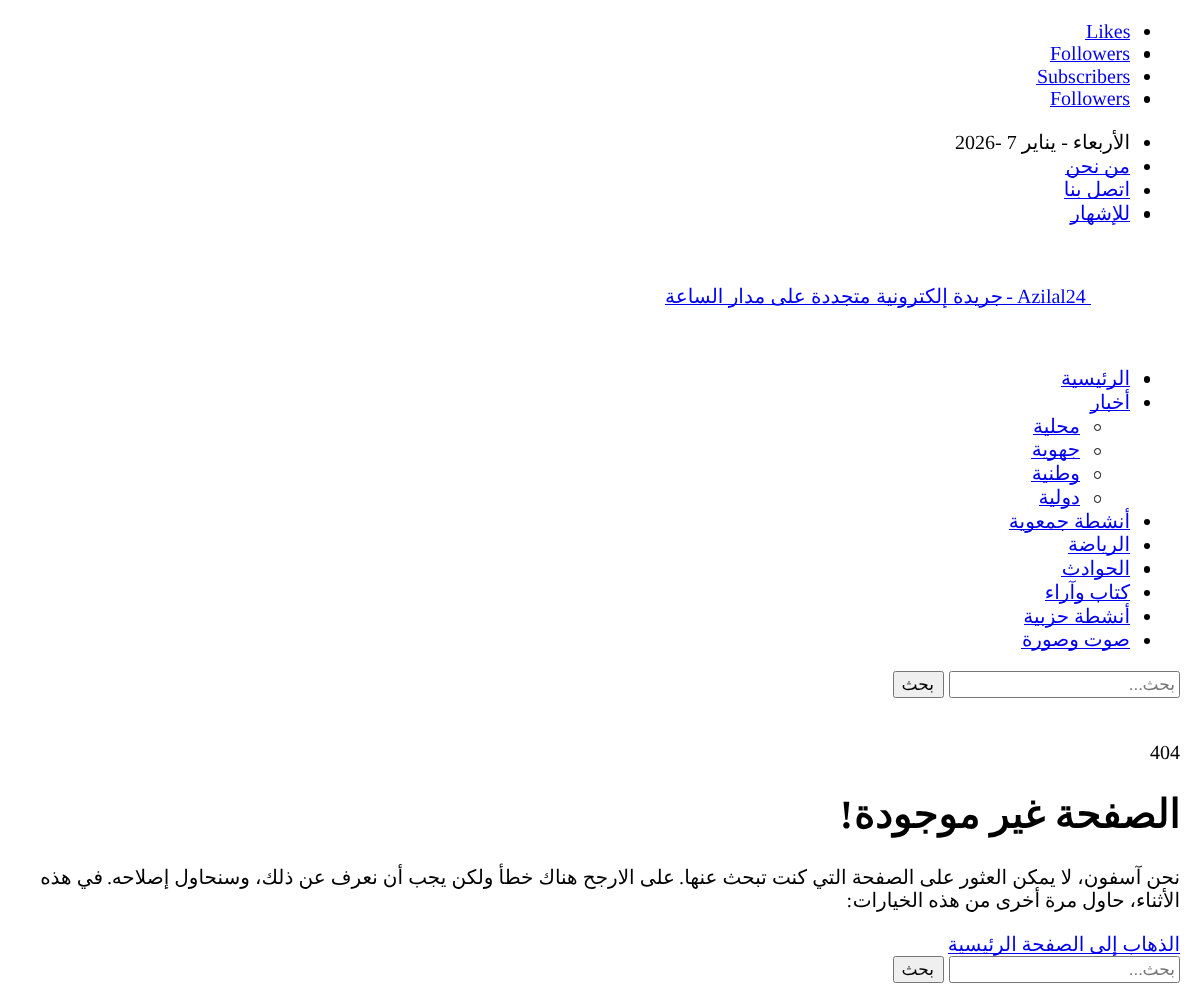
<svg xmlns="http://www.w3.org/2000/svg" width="1190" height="987">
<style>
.a{font:20px Liberation Serif;fill:#00e}
.b{font:20px DejaVu Sans;direction:rtl;fill:#000}
.c{font:20px Liberation Serif;direction:rtl;fill:#000}
.d{font:20px Liberation Serif;fill:#000}
.e{font:20px DejaVu Sans;direction:rtl;fill:#00e}
.f{font:20px Liberation Serif;direction:rtl;fill:#00e}
.g{font:17px DejaVu Sans;direction:rtl;fill:#757575}
.h{font:17px Liberation Sans;direction:rtl;fill:#757575}
.i{font:17px DejaVu Sans;direction:rtl;fill:#000}
.j{font:bold 40px DejaVu Sans;direction:rtl;fill:#000}
.k{font:bold 40px Liberation Serif;direction:rtl;fill:#000}
</style>
<rect width="100%" height="100%" fill="#fff"/>
<circle fill="#000" cx="1147" cy="32" r="3"/>
<path fill="#00e" d="M1085 39h45v1H1085z"/>
<rect fill="#000" x="1144" y="51" width="6" height="7" rx="3"/>
<path fill="#00e" d="M1050 61h80v1H1050z"/>
<circle fill="#000" cx="1147" cy="77" r="3"/>
<path fill="#00e" d="M1036 84h94v1H1036z"/>
<rect fill="#000" x="1144" y="96" width="6" height="7" rx="3"/>
<path fill="#00e" d="M1050 106h80v1H1050z"/>
<circle fill="#000" cx="1147" cy="143" r="3"/>
<circle fill="#000" cx="1147" cy="167" r="3"/>
<path fill="#00e" d="M1065 174h65v1H1065z"/>
<circle fill="#000" cx="1147" cy="191" r="3"/>
<path fill="#00e" d="M1064 198h66v1H1064z"/>
<rect fill="#000" x="1144" y="211" width="6" height="7" rx="3"/>
<path fill="#00e" d="M1070 221h60v1H1070z"/>
<path fill="#00e" d="M1086 304h5v1H1086z"/>
<path fill="#00e" d="M665 304h421v1H665z"/>
<rect fill="#000" x="1144" y="376" width="6" height="7" rx="3"/>
<path fill="#00e" d="M1061 386h69v1H1061z"/>
<circle fill="#000" cx="1147" cy="403" r="3"/>
<path fill="#00e" d="M1090 410h40v1H1090z"/>
<circle fill="none" stroke="#000" cx="1097.5" cy="427.5" r="3"/>
<path fill="#00e" d="M1033 434h47v1H1033z"/>
<circle fill="none" stroke="#000" cx="1097.5" cy="451.5" r="3"/>
<path fill="#00e" d="M1031 458h49v1H1031z"/>
<rect fill="none" stroke="#000" x="1094.5" y="471.5" width="6" height="7" rx="3"/>
<path fill="#00e" d="M1031 481h49v1H1031z"/>
<rect fill="none" stroke="#000" x="1094.5" y="495.5" width="6" height="7" rx="3"/>
<path fill="#00e" d="M1039 505h41v1H1039z"/>
<circle fill="#000" cx="1147" cy="522" r="3"/>
<path fill="#00e" d="M1009 529h121v1H1009z"/>
<circle fill="#000" cx="1147" cy="546" r="3"/>
<path fill="#00e" d="M1068 553h62v1H1068z"/>
<rect fill="#000" x="1144" y="566" width="6" height="7" rx="3"/>
<path fill="#00e" d="M1061 576h69v1H1061z"/>
<circle fill="#000" cx="1147" cy="593" r="3"/>
<path fill="#00e" d="M1045 600h85v1H1045z"/>
<circle fill="#000" cx="1147" cy="617" r="3"/>
<path fill="#00e" d="M1024 624h106v1H1024z"/>
<circle fill="#000" cx="1147" cy="641" r="3"/>
<path fill="#00e" d="M1021 648h109v1H1021z"/>
<rect fill="none" stroke="#767676" x="949.5" y="671.5" width="230" height="26" rx="2"/>
<rect fill="#efefef" stroke="#767676" x="893.5" y="671.5" width="50" height="26" rx="2"/>
<path fill="#00e" d="M948 953h232v1H948z"/>
<rect fill="none" stroke="#767676" x="949.5" y="956.5" width="230" height="26" rx="2"/>
<rect fill="#efefef" stroke="#767676" x="893.5" y="956.5" width="50" height="26" rx="2"/>
<text class="a" x="1086" y="38">Likes</text>
<text class="a" x="1050" y="60">Followers</text>
<text class="a" x="1037" y="83">Subscribers</text>
<text class="a" x="1050" y="105">Followers</text>
<text class="b" x="1130" y="149">الأربعاء</text>
<text class="c" x="1068" y="149">-</text>
<text class="b" x="1056" y="149">يناير</text>
<text class="d" x="955" y="149">2026- 7</text>
<text class="e" x="1130" y="173" word-spacing="-1.5">من نحن</text>
<text class="e" x="1130" y="196" word-spacing="-1.5">اتصل بنا</text>
<text class="e" x="1130" y="220">للإشهار</text>
<text class="a" x="1017" y="303">Azilal24</text>
<text class="f" x="1013" y="303">-</text>
<text class="e" x="1003" y="303" word-spacing="-1">جريدة إلكترونية متجددة على مدار الساعة</text>
<text class="e" x="1130" y="385">الرئيسية</text>
<text class="e" x="1130" y="409">أخبار</text>
<text class="e" x="1080" y="433">محلية</text>
<text class="e" x="1080" y="456">جهوية</text>
<text class="e" x="1080" y="480">وطنية</text>
<text class="e" x="1080" y="504">دولية</text>
<text class="e" x="1130" y="528" word-spacing="-1.5">أنشطة جمعوية</text>
<text class="e" x="1130" y="551">الرياضة</text>
<text class="e" x="1130" y="575">الحوادث</text>
<text class="e" x="1130" y="599" word-spacing="-1.5">كتاب وآراء</text>
<text class="e" x="1130" y="623" word-spacing="-1.5">أنشطة حزبية</text>
<text class="e" x="1130" y="646" word-spacing="-1.5">صوت وصورة</text>
<text class="g" x="1175" y="690">بحث</text>
<text class="h" x="1143" y="690">...</text>
<text class="i" x="934" y="690">بحث</text>
<text class="d" x="1150" y="759">404</text>
<text class="j" x="1180" y="828" word-spacing="-3">الصفحة غير موجودة</text>
<text class="k" x="853" y="828">!</text>
<text class="b" x="1180" y="884" word-spacing="-1.25">نحن آسفون، لا يمكن العثور على الصفحة التي كنت تبحث عنها</text>
<text class="c" x="684" y="884">.</text>
<text class="b" x="675" y="884" word-spacing="-1.25">على الارجح هناك خطأ ولكن يجب أن نعرف عن ذلك، وسنحاول إصلاحه</text>
<text class="c" x="112" y="884">.</text>
<text class="b" x="103" y="884" word-spacing="-1.25">في هذه</text>
<text class="b" x="1180" y="907" word-spacing="-1.5">الأثناء، حاول مرة أخرى من هذه الخيارات</text>
<text class="c" x="852" y="907">:</text>
<text class="e" x="1180" y="951" word-spacing="-1.5">الذهاب إلى الصفحة الرئيسية</text>
<text class="g" x="1175" y="975">بحث</text>
<text class="h" x="1143" y="975">...</text>
<text class="i" x="934" y="975">بحث</text>
</svg>
